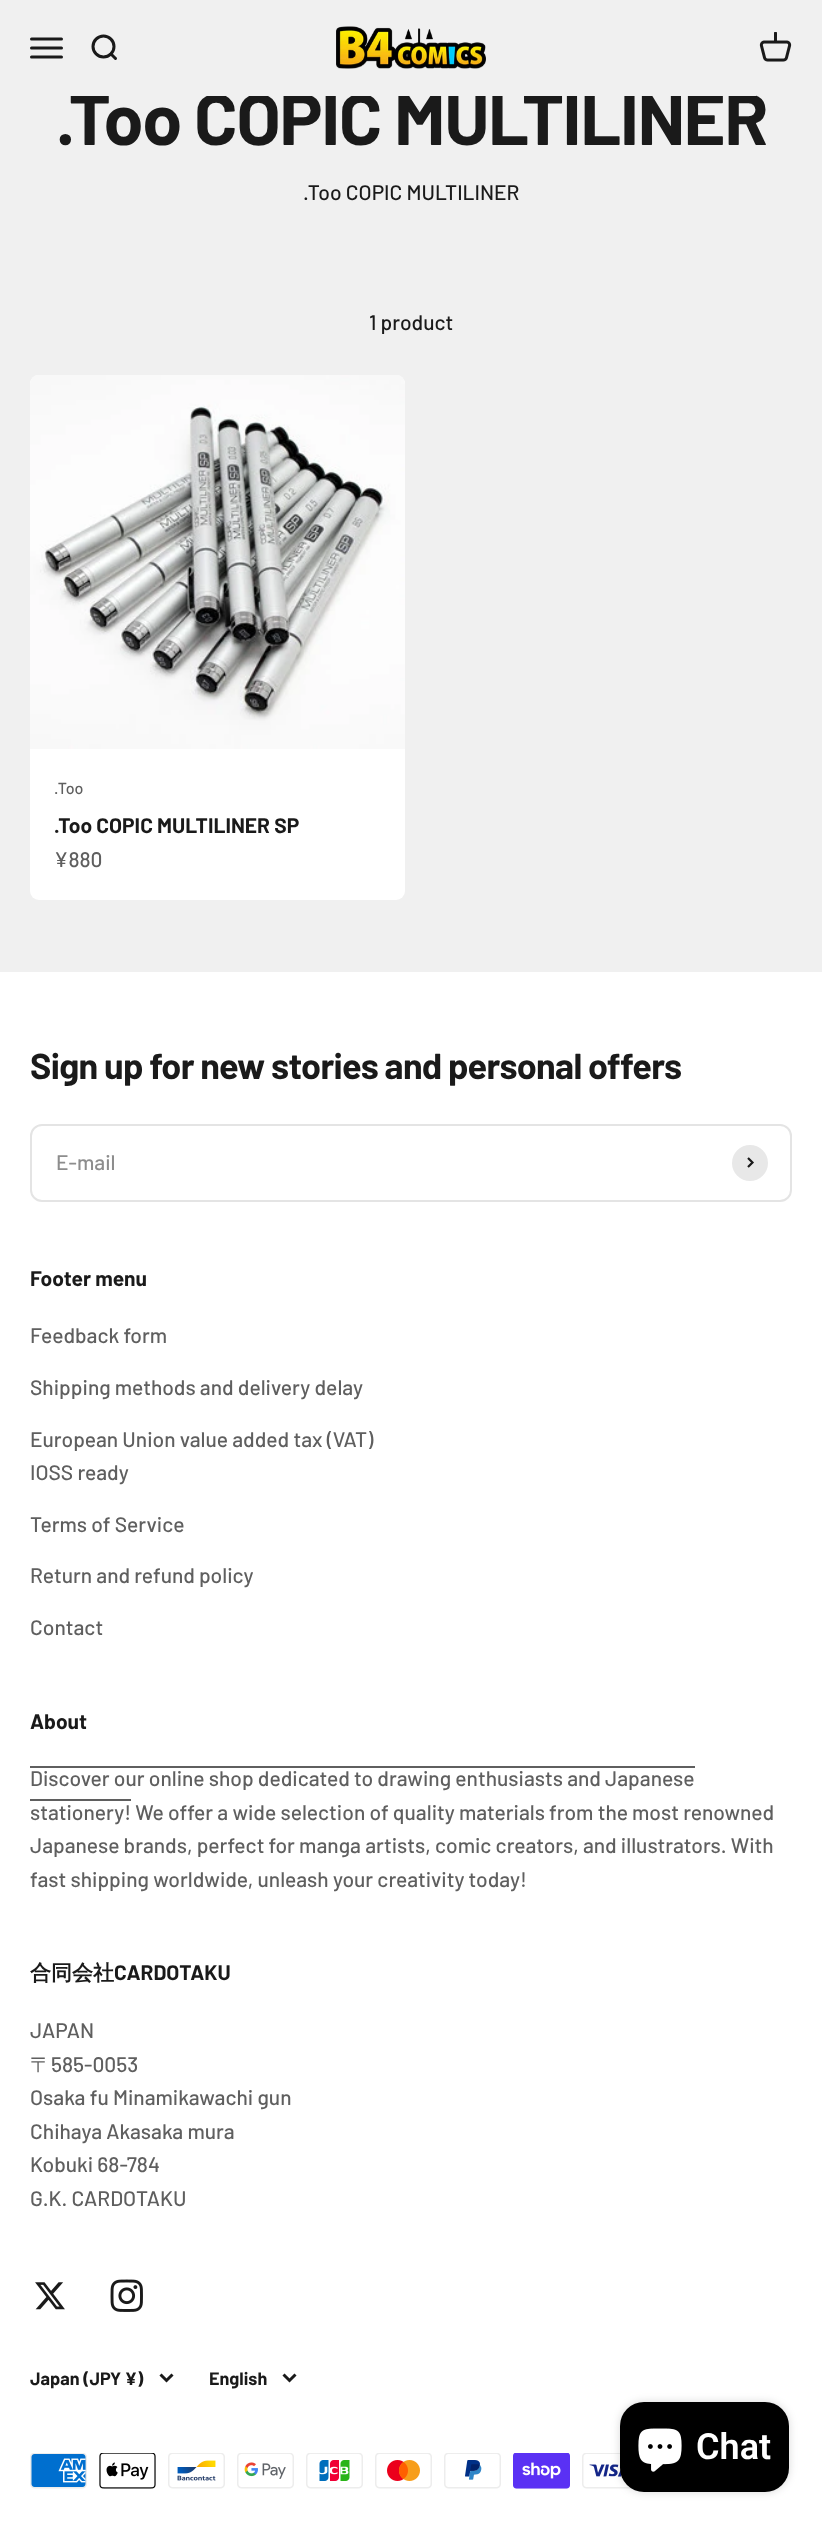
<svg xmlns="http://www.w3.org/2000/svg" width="822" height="2522">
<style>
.a{font:bold 72px Barlow;letter-spacing:-1.4px;fill:#1a1a1a}
.b{font:500 21px Barlow;fill:#1a1a1a}
.c{font:500 16px Barlow;fill:#5f5f5f}
.d{font:bold 21px Barlow;fill:#1a1a1a}
.e{font:500 21px Barlow;fill:#5f5f5f}
.f{font:bold 36px Barlow;letter-spacing:-0.7px;fill:#1a1a1a}
.g{font:500 21px Barlow;fill:#8d8d8d}
.h{font:bold 21px WenQuanYi Zen Hei;fill:#1a1a1a}
.i{font:500 21px WenQuanYi Zen Hei;fill:#5f5f5f}
.j{font:bold 18px Barlow;fill:#1a1a1a}
.k{font:600 36px Roboto;fill:#fff}
</style>
<rect width="100%" height="100%" fill="#f0f0f0"/>
<path fill="none" stroke="#1a1a1a" stroke-width="3" stroke-linecap="round" d="M31.5 39h30m-30 9h30m-30 9h30"/>
<circle fill="none" stroke="#1a1a1a" stroke-width="3" cx="103.5" cy="46.5" r="10.5"/>
<path fill="none" stroke="#1a1a1a" stroke-width="3" stroke-linecap="round" stroke-linejoin="round" d="M111 54l4.5 4.5"/>
<image href="1.png" x="336" y="26" width="150" height="43"/>
<image href="2.png" x="759" y="32" width="33" height="30"/>
<rect fill="#fff" x="30" y="375" width="375" height="525" rx="9"/>
<image href="3.png" x="30" y="375" width="375" height="374"/>
<path fill="#fff" d="M0 972h822v1550H0z"/>
<rect fill="none" stroke="#e4e4e4" stroke-width="2" x="31" y="1125" width="760" height="76" rx="11"/>
<circle fill="#e8e8e8" cx="750" cy="1163" r="18"/>
<path fill="none" stroke="#1a1a1a" stroke-width="2.2" d="M748 1167l4.5-4.5l-4.5-4.5"/>
<path fill="#5f5f5f" d="M30 1766h665v2H30z"/>
<path fill="#5f5f5f" d="M30 1799h101v2H30z"/>
<image href="4.png" x="35" y="2282" width="30" height="28"/>
<image href="5.png" x="110" y="2279" width="33" height="33"/>
<path fill="none" stroke="#1a1a1a" stroke-width="3" d="M160.5 2374.5l6 6l6-6"/>
<path fill="none" stroke="#1a1a1a" stroke-width="3" d="M283.5 2374.5l6 6l6-6"/>
<image href="6.png" x="30" y="2453" width="57" height="36"/>
<image href="7.png" x="99" y="2453" width="57" height="36"/>
<image href="8.png" x="168" y="2453" width="57" height="36"/>
<image href="9.png" x="237" y="2453" width="57" height="36"/>
<image href="10.png" x="306" y="2453" width="57" height="36"/>
<image href="11.png" x="375" y="2453" width="57" height="36"/>
<image href="12.png" x="444" y="2453" width="57" height="36"/>
<image href="13.png" x="513" y="2453" width="57" height="36"/>
<image href="14.png" x="582" y="2453" width="51" height="36"/>
<rect fill="#00000026" filter="blur(4px)" x="620" y="2402" width="169" height="90" rx="24"/>
<rect fill="#000" x="620" y="2402" width="169" height="90" rx="24"/>
<image href="15.png" x="638" y="2428" width="44" height="44"/>
<text class="a" x="56" y="145">.Too COPIC MULTILINER</text>
<path fill="#f0f0f0" d="M70 94h686v2H70z"/>
<text class="b" x="303" y="200">.Too COPIC MULTILINER</text>
<text class="b" x="369" y="330">1 product</text>
<text class="c" x="54" y="794">.Too</text>
<text class="d" x="54" y="833">.Too COPIC MULTILINER SP</text>
<text class="e" x="54" y="867">¥880</text>
<text class="f" x="30" y="1079">Sign up for new stories and personal offers</text>
<text class="g" x="56" y="1170">E-mail</text>
<text class="d" x="30" y="1286">Footer menu</text>
<text class="e" x="30" y="1343">Feedback form</text>
<text class="e" x="30" y="1395">Shipping methods and delivery delay</text>
<text class="e" x="30" y="1447">European Union value added tax (VAT)</text>
<text class="e" x="30" y="1480">IOSS ready</text>
<text class="e" x="30" y="1532">Terms of Service</text>
<text class="e" x="30" y="1583">Return and refund policy</text>
<text class="e" x="30" y="1635">Contact</text>
<text class="d" x="30" y="1729">About</text>
<text class="e" x="30" y="1786">Discover our online shop dedicated to drawing enthusiasts and Japanese</text>
<text class="e" x="30" y="1820">stationery! We offer a wide selection of quality materials from the most renowned</text>
<text class="e" x="30" y="1853">Japanese brands, perfect for manga artists, comic creators, and illustrators. With</text>
<text class="e" x="30" y="1887">fast shipping worldwide, unleash your creativity today!</text>
<text class="h" x="30" y="1980">合同会社</text>
<text class="d" x="114" y="1980">CARDOTAKU</text>
<text class="e" x="30" y="2038">JAPAN</text>
<text class="i" x="30" y="2072">〒</text>
<text class="e" x="51" y="2072">585-0053</text>
<text class="e" x="30" y="2105">Osaka fu Minamikawachi gun</text>
<text class="e" x="30" y="2139">Chihaya Akasaka mura</text>
<text class="e" x="30" y="2172">Kobuki 68-784</text>
<text class="e" x="30" y="2206">G.K. CARDOTAKU</text>
<text class="j" x="30" y="2385">Japan (JPY ¥)</text>
<text class="j" x="209" y="2385">English</text>
<text class="k" x="696" y="2459">Chat</text>
</svg>
